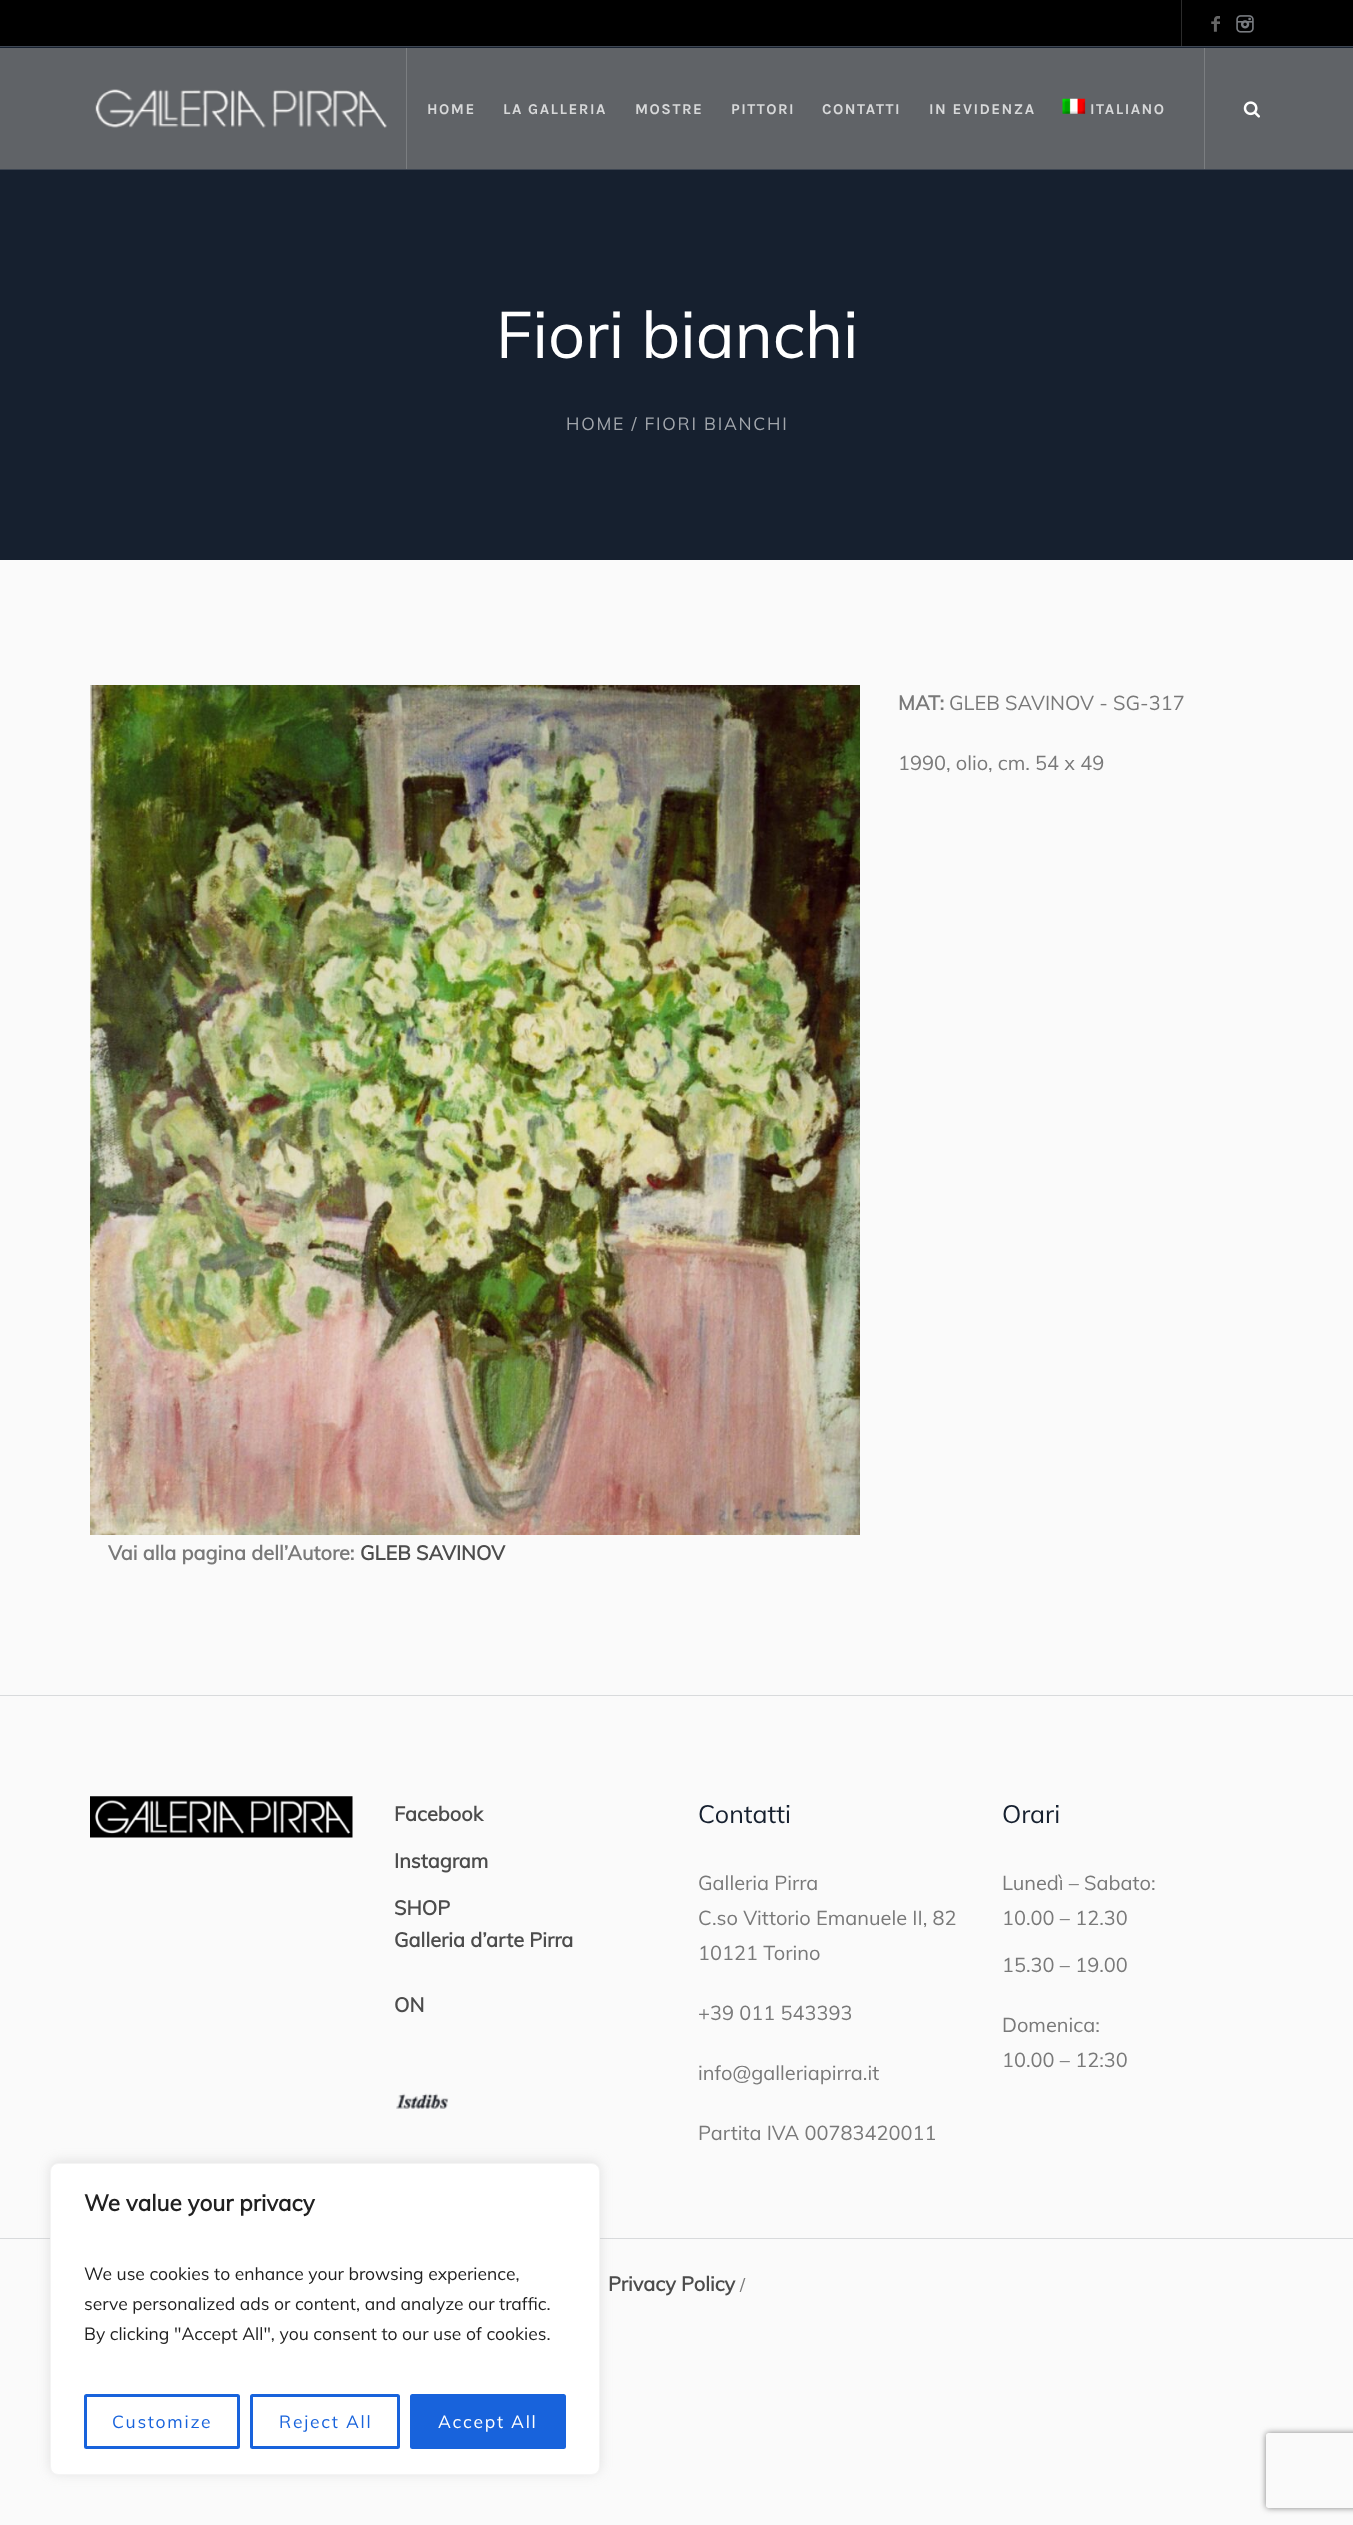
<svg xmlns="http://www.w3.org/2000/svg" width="1353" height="2525">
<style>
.a{font:bold 15px Karla;letter-spacing:1.5px;fill:#d7d8d9}
.b{font:65px Muli;fill:#fff}
.c{font:17.5px Muli;letter-spacing:1.75px;fill:#a2a6ac}
.d{font:bold 20px Muli;fill:#797979}
.e{font:20px Muli;fill:#797979}
.f{font:bold 20px Muli;fill:#4c4c4c}
.g{font:25px Muli;fill:#16202f}
.h{font:17.5px Muli;fill:#797979}
.i{font:bold 22.5px Muli;fill:#212121}
.j{font:17.5px Muli;fill:#212121}
.k{font:17.5px Muli;letter-spacing:1.75px;fill:#1863dc}
.l{font:17.5px Muli;letter-spacing:1.75px;fill:#fff}
</style>
<defs>
<clipPath id="clip1"><path d="M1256 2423h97v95h-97zm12.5 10h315c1.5 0 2.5 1 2.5 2.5v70c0 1.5-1 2.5-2.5 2.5h-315c-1.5 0-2.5-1-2.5-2.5v-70c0-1.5 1-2.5 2.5-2.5z" clip-rule="evenodd"/></clipPath>
</defs>
<rect width="100%" height="100%" fill="#fafafa"/>
<path fill="#3e4652" d="M0 46h1353v1H0z"/>
<path fill="#000" d="M0 0h1353v46H0z"/>
<path fill="#2b2b2b" d="M1181 0h1v46H1181z"/>
<image href="1.png" x="1211" y="16" width="9" height="16"/>
<image href="2.png" x="1236" y="15" width="18" height="18"/>
<path fill="#16202f" d="M0 47h1353v513H0z"/>
<path fill="#3e4652" d="M0 169h1353v1H0z"/>
<path fill="#606367" d="M0 48h1353v121H0z"/>
<image href="3.png" x="95" y="89" width="292" height="39"/>
<path fill="#7b7e81" d="M406 48h1v121H406z"/>
<image href="4.png" x="1062" y="98" width="24" height="16"/>
<path fill="#7b7e81" d="M1204 48h1v121H1204z"/>
<image href="5.png" x="1243" y="101" width="17" height="17"/>
<image href="6.png" x="90" y="685" width="770" height="850"/>
<path fill="#d8dadc" d="M0 1695h1353v1H0z"/>
<image href="7.png" x="90" y="1796" width="263" height="42"/>
<image href="8.png" x="396" y="2093" width="53" height="16"/>
<path fill="#d8dadc" d="M0 2238h1353v1H0z"/>
<rect fill="#acabab4d" filter="blur(6px)" x="50" y="2161" width="550" height="313" rx="8"/>
<rect fill="#fff" stroke="#f4f4f4" x="50.5" y="2163.5" width="549" height="311" rx="7.5"/>
<rect fill="none" stroke="#1863dc" stroke-width="3" x="85.5" y="2395.5" width="153" height="52" rx="1"/>
<rect fill="none" stroke="#1863dc" stroke-width="3" x="251.5" y="2395.5" width="147" height="52" rx="1"/>
<rect fill="#1863dc" stroke="#1863dc" stroke-width="3" x="411.5" y="2395.5" width="153" height="52" rx="1"/>
<g clip-path="url(#clip1)">
<rect fill="#808080" filter="blur(3px)" x="1266" y="2433" width="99" height="75" rx="2.5"/>
</g>
<text class="a" x="427" y="114">HOME</text>
<text class="a" x="503" y="114">LA GALLERIA</text>
<text class="a" x="635" y="114">MOSTRE</text>
<text class="a" x="731" y="114">PITTORI</text>
<text class="a" x="822" y="114">CONTATTI</text>
<text class="a" x="929" y="114">IN EVIDENZA</text>
<text class="a" x="1090" y="114">ITALIANO</text>
<text class="b" x="496" y="358">Fiori bianchi</text>
<text class="c" x="566" y="430">HOME / FIORI BIANCHI</text>
<text class="d" x="898" y="710">MAT:</text>
<text class="e" x="949" y="710">GLEB SAVINOV - SG-317</text>
<text class="e" x="898" y="770">1990, olio, cm. 54 x 49</text>
<text class="d" x="108" y="1560">Vai alla pagina dell’Autore:</text>
<text class="f" x="360" y="1560">GLEB SAVINOV</text>
<text class="f" x="394" y="1821">Facebook</text>
<text class="f" x="394" y="1868">Instagram</text>
<text class="f" x="394" y="1915">SHOP</text>
<text class="f" x="394" y="1947">Galleria d’arte Pirra</text>
<text class="f" x="394" y="2012">ON</text>
<text class="g" x="698" y="1823">Contatti</text>
<text class="e" x="698" y="1890">Galleria Pirra</text>
<text class="e" x="698" y="1925">C.so Vittorio Emanuele II, 82</text>
<text class="e" x="698" y="1960">10121 Torino</text>
<text class="e" x="698" y="2020">+39 011 543393</text>
<text class="e" x="698" y="2080">info@galleriapirra.it</text>
<text class="e" x="698" y="2140">Partita IVA 00783420011</text>
<text class="g" x="1002" y="1823">Orari</text>
<text class="e" x="1002" y="1890">Lunedì – Sabato:</text>
<text class="e" x="1002" y="1925">10.00 – 12.30</text>
<text class="e" x="1002" y="1972">15.30 – 19.00</text>
<text class="e" x="1002" y="2032">Domenica:</text>
<text class="e" x="1002" y="2067">10.00 – 12:30</text>
<text class="f" x="608" y="2291">Privacy Policy</text>
<text class="h" x="740" y="2291">/</text>
<text class="i" x="84" y="2211">We value your privacy</text>
<text class="j" x="84" y="2280">We use cookies to enhance your browsing experience,</text>
<text class="j" x="84" y="2310">serve personalized ads or content, and analyze our traffic.</text>
<text class="j" x="84" y="2340">By clicking "Accept All", you consent to our use of cookies.</text>
<text class="k" x="112" y="2428">Customize</text>
<text class="k" x="279" y="2428">Reject All</text>
<text class="l" x="438" y="2428">Accept All</text>
</svg>
